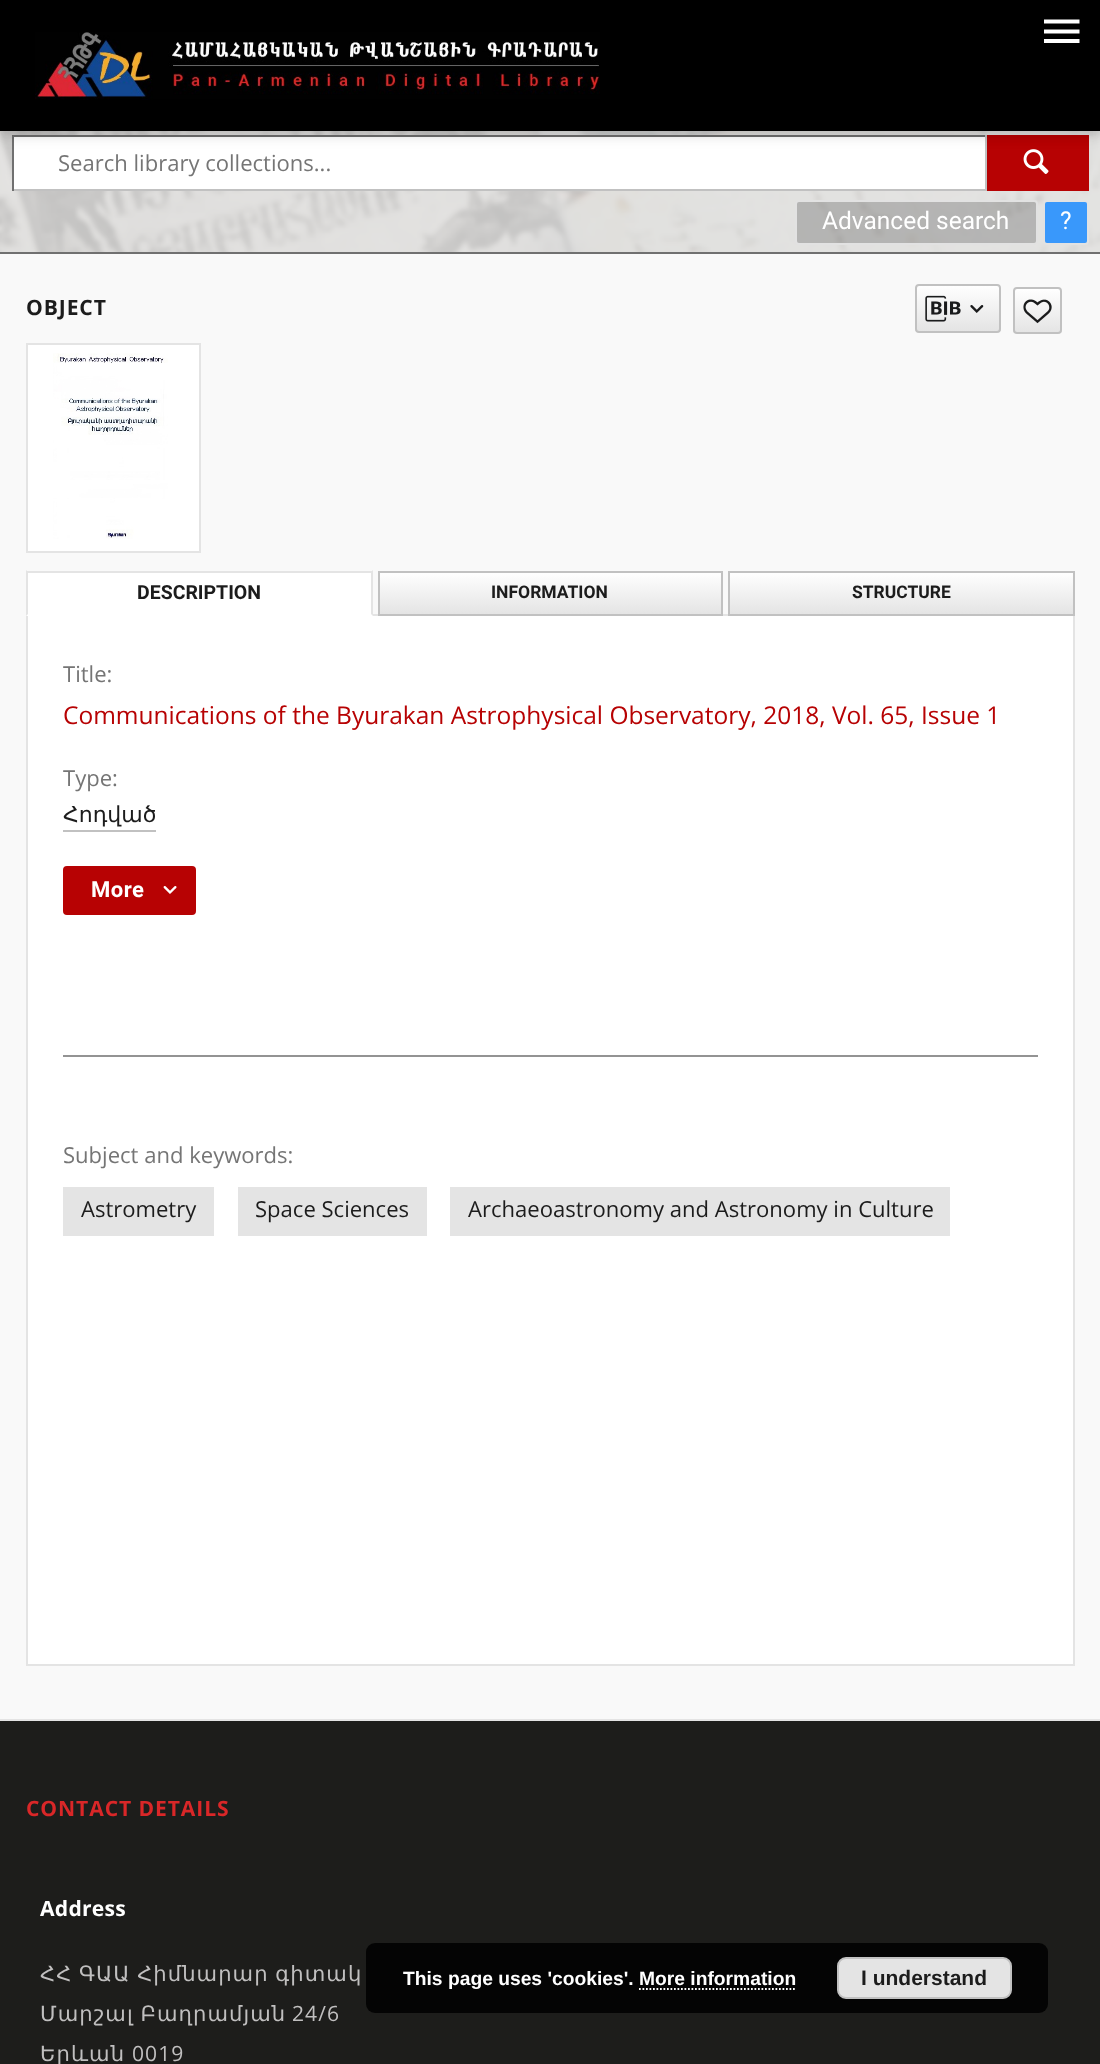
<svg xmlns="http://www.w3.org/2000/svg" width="1100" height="2064">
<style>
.a{font:22.05px Open Sans;fill:#757575}
.b{font:24.5px Roboto;fill:#fff}
.c{font:bold 21.1px Open Sans;letter-spacing:0.9px;fill:#1c1c1c}
.d{font:bold 19.5px Roboto;fill:#1c1c1c}
.e{font:bold 17.5px Roboto;fill:#1c1c1c}
.f{font:24.5px Open Sans;fill:#b70203}
.g{font:22.05px DejaVu Sans;fill:#1c1c1c}
.h{font:bold 22.05px Roboto;letter-spacing:0.5px;fill:#fff}
.i{font:22.05px Open Sans;fill:#1c1c1c}
.j{font:bold 21.1px Open Sans;letter-spacing:0.9px;fill:#d92728}
.k{font:bold 21.1px Open Sans;letter-spacing:0.25px;fill:#fff}
.l{font:21.1px DejaVu Sans;letter-spacing:1.05px;fill:#c0bfbf}
.m{font:21.1px Open Sans;letter-spacing:1.05px;fill:#c0bfbf}
.n{font:bold 19.25px Liberation Sans;fill:#fff}
.o{font:bold 21px Liberation Sans;fill:#1c1c1c}
</style>
<defs>
<clipPath id="clip1"><rect x="915" y="284" width="86" height="49" rx="4"/></clipPath>
<linearGradient id="g1" gradientUnits="userSpaceOnUse" x1="958" y1="285" x2="958" y2="331"><stop offset="0" stop-color="#fff"/><stop offset="1" stop-color="#e4e4e4"/></linearGradient>
<clipPath id="clip2"><rect x="1013" y="287" width="49" height="47" rx="4"/></clipPath>
<linearGradient id="g2" gradientUnits="userSpaceOnUse" x1="1038" y1="289" x2="1038" y2="333"><stop offset="0" stop-color="#fff"/><stop offset="1" stop-color="#e4e4e4"/></linearGradient>
<linearGradient id="g3" gradientUnits="userSpaceOnUse" x1="550" y1="572" x2="550" y2="614"><stop offset="0" stop-color="#fff"/><stop offset="1" stop-color="#e4e4e4"/></linearGradient>
<linearGradient id="g4" gradientUnits="userSpaceOnUse" x1="901" y1="572" x2="901" y2="614"><stop offset="0" stop-color="#fff"/><stop offset="1" stop-color="#e4e4e4"/></linearGradient>
</defs>
<rect width="100%" height="100%" fill="#f9f9f9"/>
<image href="2.png" x="0" y="131" width="1100" height="121"/>
<path fill="#fff" d="M14 137h971v52H14z"/>
<path fill="#707070" d="M12 135h975v2H12z"/>
<path fill="#c1c1c1" d="M985 135h2v56H985z"/>
<path fill="#c1c1c1" d="M12 189h975v2H12z"/>
<path fill="#707070" d="M12 135h2v56H12z"/>
<path fill="#b70203" d="M987 135h102v56H987z"/>
<image href="3.png" x="1023" y="149" width="26" height="25"/>
<path fill="#00000014" filter="blur(9px)" d="M0 2h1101v131H0z"/>
<path fill="#0000000f" filter="blur(4.5px)" d="M0 7h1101v131H0z"/>
<path fill="#0000000f" filter="blur(3.5px)" d="M2 5h1097v128H2z"/>
<path fill="#000" d="M0 0h1100v131H0z"/>
<image href="1.png" x="35" y="32" width="565" height="68"/>
<path fill="#fff" d="M1079.5 23.5h-35.5v-4h35.5zm0 6h-35.5v4h35.5zm0 9.5h-35.5v4h35.5z"/>
<path fill="#707070" d="M0 252h1100v2H0z"/>
<rect fill="#00000033" stroke="#e2e2e2" stroke-width="2" x="796" y="201" width="241" height="43" rx="3"/>
<rect fill="#3998fb" stroke="#e2e2e2" stroke-width="2" x="1044" y="201" width="44" height="43" rx="3"/>
<g clip-path="url(#clip1)">
<path fill="url(#g1)" d="M915 285h86v46H915z"/>
</g>
<rect fill="none" stroke="#c1c1c1" stroke-width="2" x="916" y="285" width="84" height="47" rx="3"/>
<image href="4.png" x="925" y="295" width="36" height="27"/>
<image href="5.png" x="970" y="305" width="14" height="8"/>
<g clip-path="url(#clip2)">
<path fill="url(#g2)" d="M1013 289h49v44H1013z"/>
</g>
<rect fill="none" stroke="#c1c1c1" stroke-width="2" x="1014" y="288" width="47" height="45" rx="3"/>
<image href="6.png" x="1023" y="299" width="29" height="25"/>
<path fill="#fff" stroke="#e4e4e4" stroke-width="2" d="M27 344h173v208H27z"/>
<image href="7.png" x="53" y="353" width="115" height="186"/>
<path fill="#e4e4e4" d="M373 614h355v2H373z"/>
<path fill="#fff" d="M26 573h347v43H26z"/>
<path fill="#e4e4e4" d="M26 571h347v2H26z"/>
<path fill="#e4e4e4" d="M373 570v46l-2-2v-42z"/>
<path fill="#e4e4e4" d="M26 616v-46l2 2v42z"/>
<path fill="url(#g3)" d="M380 573h341v41H380z"/>
<path fill="none" stroke="#c1c1c1" stroke-width="2" d="M379 572h343v43H379z"/>
<path fill="url(#g4)" d="M730 573h343v41H730z"/>
<path fill="none" stroke="#c1c1c1" stroke-width="2" d="M729 572h345v43H729z"/>
<path fill="#fff" d="M28 616h1045v1048H28z"/>
<path fill="#e4e4e4" d="M1073 616h2v1050H1073z"/>
<path fill="#e4e4e4" d="M26 1664h1049v2H26z"/>
<path fill="#e4e4e4" d="M26 616h2v1050H26z"/>
<path fill="#c1c1c1" d="M63 830h93v2H63z"/>
<rect fill="#b70203" stroke="#b70203" stroke-width="2" x="64" y="867" width="131" height="47" rx="3"/>
<image href="8.png" x="163" y="886" width="14" height="8"/>
<path fill="#939393" d="M63 1055h975v2H63z"/>
<path fill="#e4e4e4" d="M63 1187h151v49H63z"/>
<path fill="#e4e4e4" d="M238 1187h189v49H238z"/>
<path fill="#e4e4e4" d="M450 1187h500v49H450z"/>
<path fill="#1d1d1b" d="M0 1721h1100v343H0z"/>
<path fill="#e4e4e4" d="M0 1719h1100v2H0z"/>
<rect fill="#000000d9" x="366" y="1943" width="682" height="70" rx="9"/>
<rect fill="#e4e4e4" stroke="#c1c1c1" stroke-width="2" x="838" y="1958" width="173" height="40" rx="8"/>
<path fill="none" stroke="#fff" stroke-width="1.8" stroke-dasharray="1.75 1.75" d="M639 1989h157"/>
<text class="a" x="58" y="171">Search library collections...</text>
<text class="b" x="822" y="229">Advanced search</text>
<text class="b" x="1060" y="229">?</text>
<text class="c" x="26" y="315">OBJECT</text>
<text class="d" x="137" y="599">DESCRIPTION</text>
<text class="e" x="491" y="598">INFORMATION</text>
<text class="e" x="852" y="598">STRUCTURE</text>
<text class="a" x="63" y="682">Title:</text>
<text class="f" x="63" y="724">Communications of the Byurakan Astrophysical Observatory, 2018, Vol. 65, Issue 1</text>
<text class="a" x="63" y="786">Type:</text>
<text class="g" x="63" y="822">Հոդված</text>
<text class="h" x="91" y="897">More</text>
<text class="a" x="63" y="1163">Subject and keywords:</text>
<text class="i" x="81" y="1217">Astrometry</text>
<text class="i" x="255" y="1217">Space Sciences</text>
<text class="i" x="468" y="1217">Archaeoastronomy and Astronomy in Culture</text>
<text class="j" x="26" y="1816">CONTACT DETAILS</text>
<text class="k" x="40" y="1916">Address</text>
<text class="l" x="40" y="1981" word-spacing="-1">ՀՀ ԳԱԱ Հիմնարար գիտակ</text>
<text class="l" x="40" y="2021" word-spacing="-1">Մարշալ Բաղրամյան</text>
<text class="m" x="292" y="2021">24/6</text>
<text class="l" x="40" y="2061">Երևան</text>
<text class="m" x="132" y="2061">0019</text>
<text class="n" x="403" y="1985">This page uses 'cookies'. More information</text>
<text class="o" x="861" y="1985">I understand</text>
</svg>
